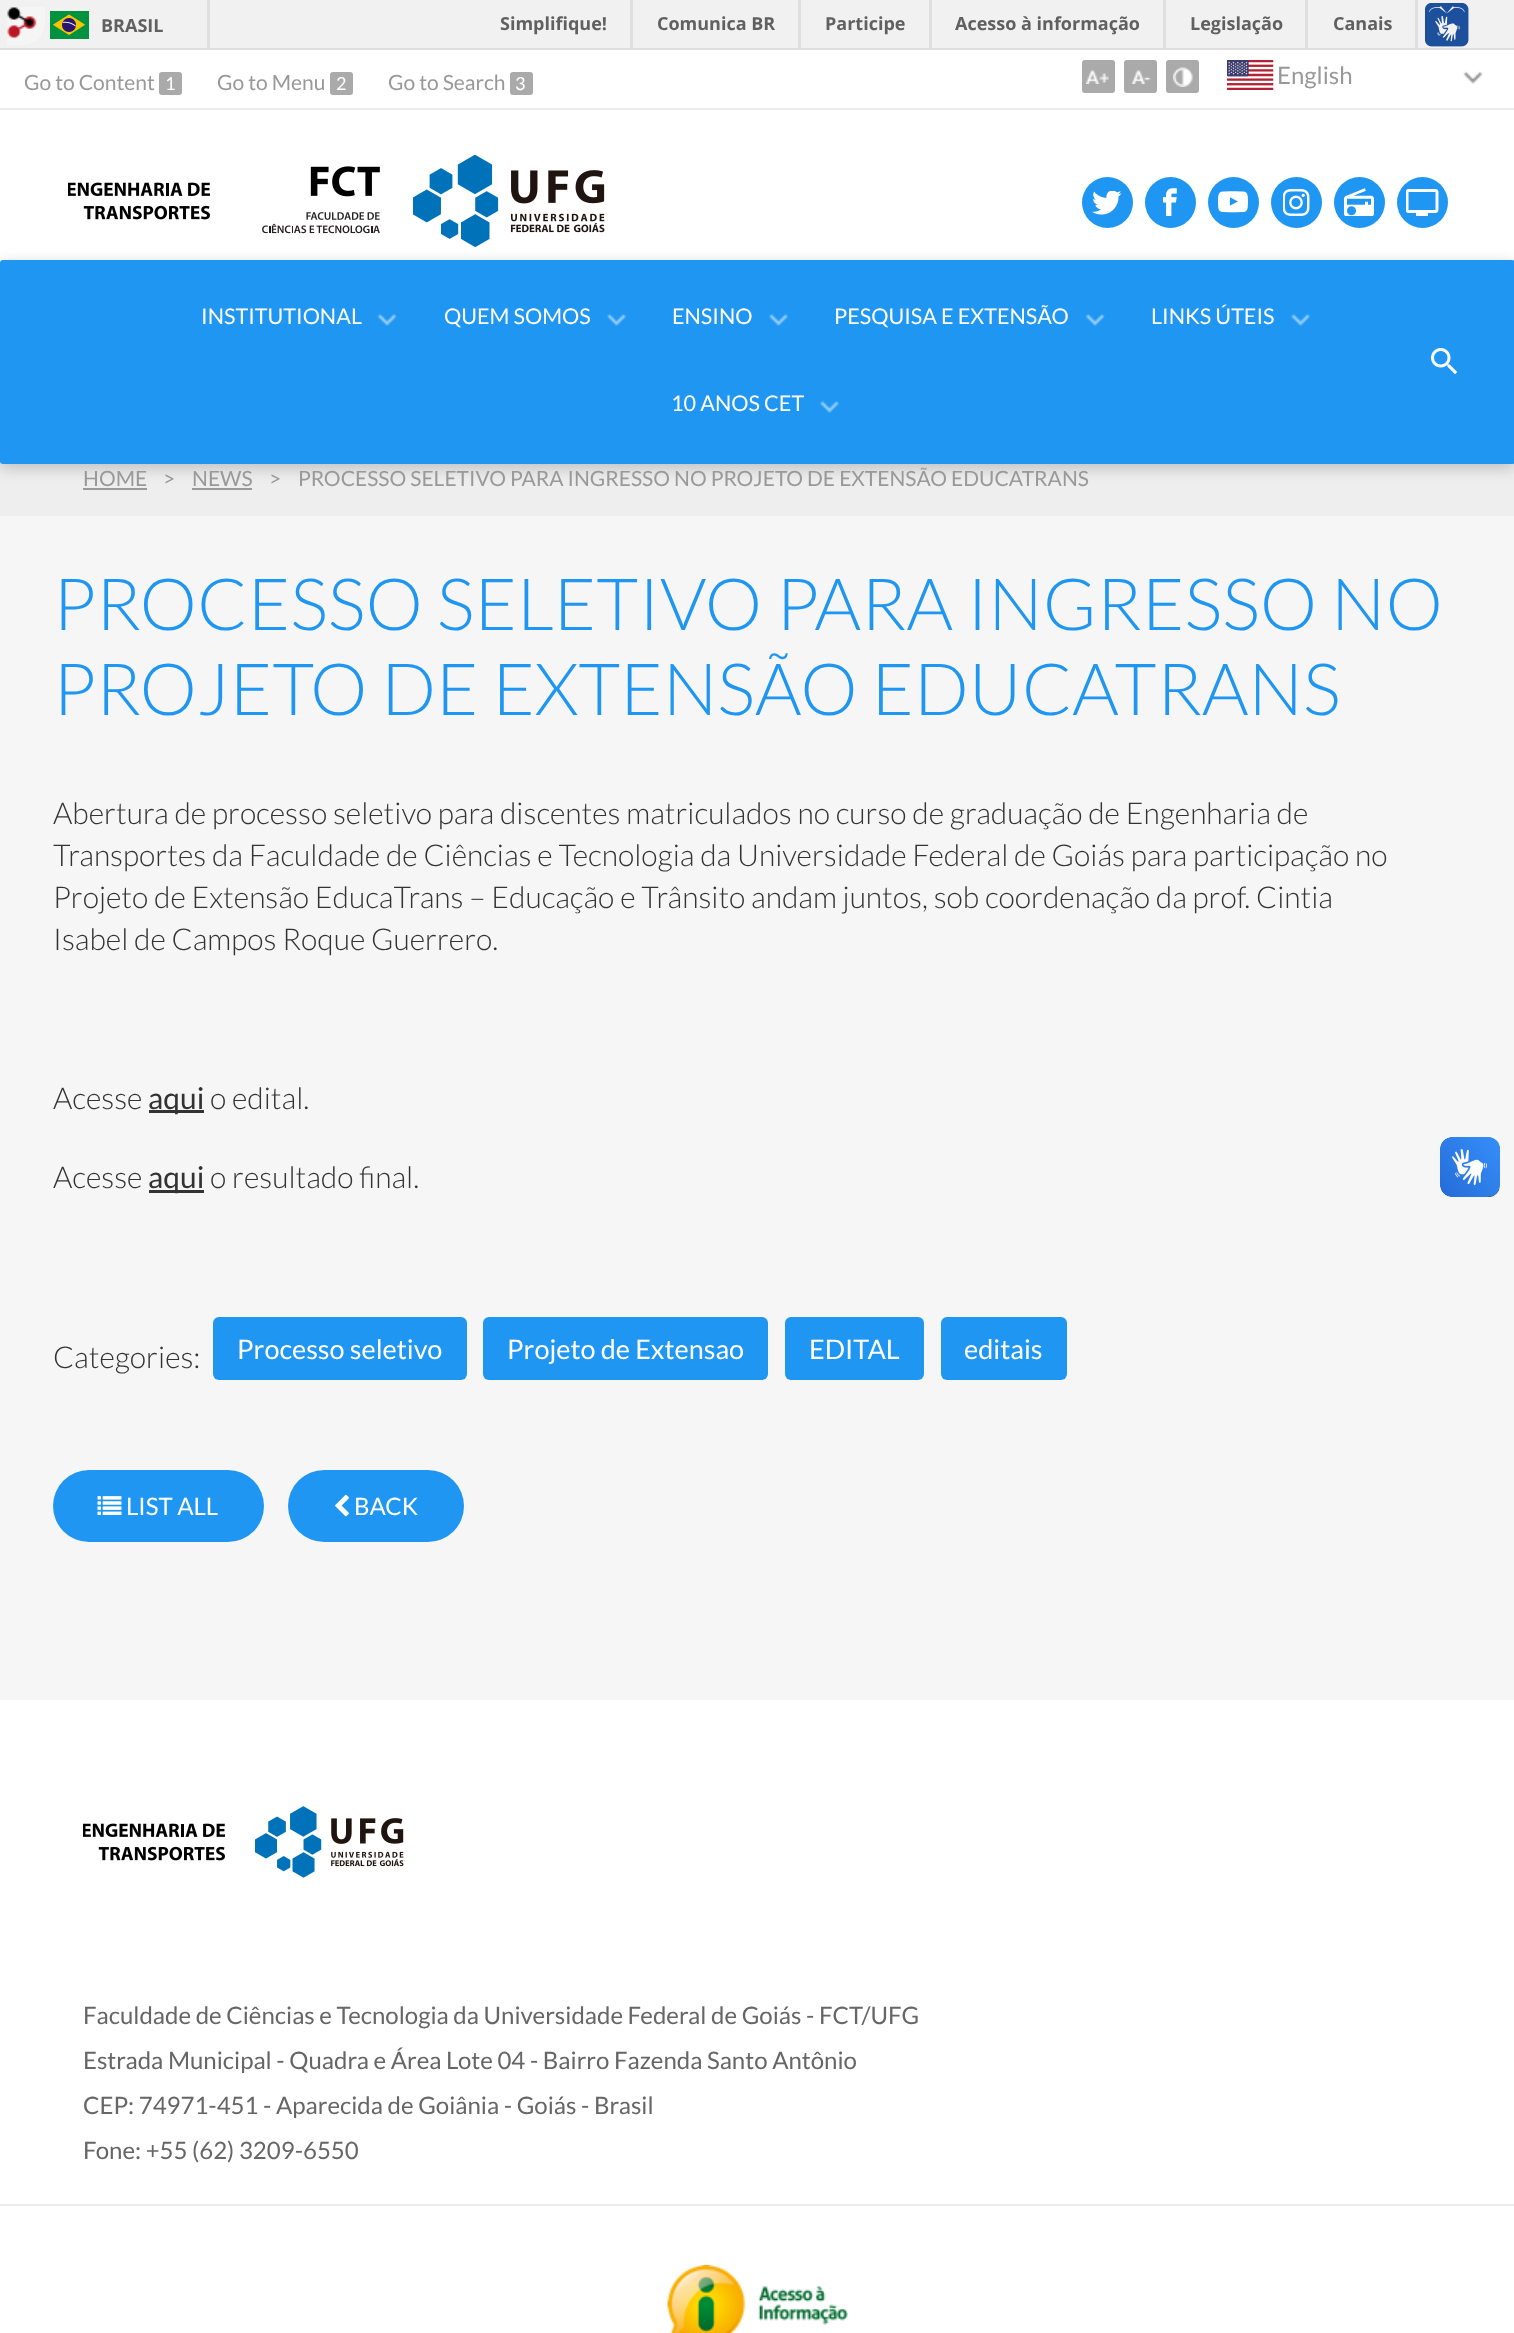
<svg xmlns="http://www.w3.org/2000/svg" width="1514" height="2333">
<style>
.a{font:bold 18px Open Sans;fill:#606060}
.b{font:21px Lato;fill:#999}
.c{font:18px Lato;fill:#fff}
.d{font:24px Lato;fill:#999}
.e{font:21.6px Lato;fill:#fff}
.f{font:300 72px Lato;fill:#2096f3}
.g{font:300 30px Lato;fill:#333}
.h{font:30px Lato;fill:#333}
.i{font:27px Lato;fill:#fff}
.j{font:24px Lato;fill:#fff}
.k{font:24px Lato;fill:#666}
</style>
<rect width="100%" height="100%" fill="#f6f6f6"/>
<path fill="#f1f1f1" d="M0 0h1514v48H0z"/>
<image href="1.png" x="7" y="7" width="38" height="38"/>
<path fill="#dfdfdf" d="M0 48h1514v2H0z"/>
<path fill="#dfdfdf" d="M207 0h3v48H207z"/>
<image href="2.png" x="50" y="11" width="39" height="28"/>
<path fill="#dfdfdf" d="M630 0h3v48H630z"/>
<path fill="#dfdfdf" d="M798 0h3v48H798z"/>
<path fill="#dfdfdf" d="M929 0h3v48H929z"/>
<path fill="#dfdfdf" d="M1163 0h3v48H1163z"/>
<path fill="#dfdfdf" d="M1305 0h3v48H1305z"/>
<path fill="#dfdfdf" d="M1415 0h3v48H1415z"/>
<image href="3.png" x="1425" y="3" width="44" height="44"/>
<path fill="#fff" d="M0 50h1514v58H0z"/>
<path fill="#ececec" d="M0 108h1514v2H0z"/>
<rect fill="#aaa" x="159" y="72" width="23" height="23" rx="3"/>
<rect fill="#aaa" x="330" y="72" width="23" height="23" rx="3"/>
<rect fill="#aaa" x="510" y="72" width="23" height="23" rx="3"/>
<rect fill="#aaa" x="1082" y="60" width="33" height="33" rx="3"/>
<image href="4.png" x="1086" y="70" width="23" height="14"/>
<rect fill="#aaa" x="1124" y="60" width="33" height="33" rx="3"/>
<image href="5.png" x="1131" y="70" width="20" height="14"/>
<rect fill="#aaa" x="1166" y="60" width="33" height="33" rx="3"/>
<image href="6.png" x="1173" y="67" width="20" height="20"/>
<image href="7.png" x="1463" y="71" width="20" height="13"/>
<image href="8.png" x="1227" y="60" width="47" height="30"/>
<path fill="#fff" d="M0 110h1514v153H0z"/>
<image href="9.png" x="68" y="182" width="142" height="38"/>
<image href="10.png" x="262" y="166" width="118" height="68"/>
<image href="11.png" x="413" y="155" width="192" height="93"/>
<circle fill="#2096f3" cx="1107.5" cy="202.5" r="25.5"/>
<image href="12.png" x="1092" y="191" width="30" height="24"/>
<circle fill="#2096f3" cx="1170.5" cy="202.5" r="25.5"/>
<image href="13.png" x="1163" y="188" width="14" height="28"/>
<circle fill="#2096f3" cx="1233.5" cy="202.5" r="25.5"/>
<image href="14.png" x="1218" y="191" width="30" height="22"/>
<circle fill="#2096f3" cx="1296.5" cy="202.5" r="25.5"/>
<image href="15.png" x="1283" y="189" width="27" height="27"/>
<circle fill="#2096f3" cx="1359.5" cy="202.5" r="25.5"/>
<image href="16.png" x="1344" y="188" width="30" height="28"/>
<circle fill="#2096f3" cx="1422.5" cy="202.5" r="25.5"/>
<image href="17.png" x="1406" y="189" width="33" height="27"/>
<path fill="#eee" d="M0 461h1514v55H0z"/>
<path fill="#999" d="M83 488h64v2H83z"/>
<path fill="#999" d="M192 488h60v2H192z"/>
<rect fill="#00000033" filter="blur(7.5px)" y="264" width="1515" height="204" rx="3"/>
<rect fill="#2096f3" y="260" width="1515" height="204" rx="3"/>
<image href="18.png" x="377" y="313" width="20" height="13"/>
<image href="19.png" x="607" y="313" width="19" height="13"/>
<image href="20.png" x="769" y="313" width="19" height="13"/>
<image href="18.png" x="1085" y="313" width="20" height="13"/>
<image href="19.png" x="1291" y="313" width="19" height="13"/>
<image href="20.png" x="820" y="400" width="19" height="13"/>
<image href="21.png" x="1431" y="348" width="27" height="27"/>
<path fill="#333" d="M149 1110h55v3H149z"/>
<path fill="#333" d="M149 1190h55v3H149z"/>
<rect fill="#2096f3" x="213" y="1317" width="254" height="63" rx="6"/>
<rect fill="#2096f3" x="483" y="1317" width="285" height="63" rx="6"/>
<rect fill="#2096f3" x="785" y="1317" width="139" height="63" rx="6"/>
<rect fill="#2096f3" x="941" y="1317" width="126" height="63" rx="6"/>
<rect fill="#2096f3" x="53" y="1470" width="211" height="72" rx="36"/>
<image href="22.png" x="97" y="1496" width="25" height="19"/>
<rect fill="#2096f3" x="288" y="1470" width="176" height="72" rx="36"/>
<image href="23.png" x="335" y="1494" width="14" height="23"/>
<image href="24.png" x="1440" y="1137" width="60" height="60"/>
<image href="25.png" x="1440" y="1137" width="60" height="60"/>
<path fill="#fff" d="M0 1700h1514v633H0z"/>
<image href="9.png" x="83" y="1823" width="142" height="38"/>
<image href="26.png" x="255" y="1806" width="149" height="72"/>
<path fill="#ececec" d="M0 2204h1514v2H0z"/>
<image href="27.png" x="667" y="2265" width="181" height="68"/>
<text class="a" x="101" y="32">BRASIL</text>
<text class="a" x="500" y="30">Simplifique!</text>
<text class="a" x="657" y="30">Comunica BR</text>
<text class="a" x="825" y="30">Participe</text>
<text class="a" x="955" y="30">Acesso à informação</text>
<text class="a" x="1190" y="30">Legislação</text>
<text class="a" x="1333" y="30">Canais</text>
<text class="b" x="24" y="90">Go to Content</text>
<text class="c" x="165" y="90">1</text>
<text class="b" x="217" y="90">Go to Menu</text>
<text class="c" x="336" y="90">2</text>
<text class="b" x="388" y="90">Go to Search</text>
<text class="c" x="515" y="90">3</text>
<text class="d" x="1277" y="84">English</text>
<text class="e" x="201" y="324">INSTITUTIONAL</text>
<text class="e" x="444" y="324">QUEM SOMOS</text>
<text class="e" x="672" y="324">ENSINO</text>
<text class="e" x="834" y="324">PESQUISA E EXTENSÃO</text>
<text class="e" x="1151" y="324">LINKS ÚTEIS</text>
<text class="e" x="671" y="411">10 ANOS CET</text>
<text class="b" x="83" y="486">HOME</text>
<text class="b" x="163" y="486">&gt;</text>
<text class="b" x="192" y="486">NEWS</text>
<text class="b" x="269" y="486">&gt;</text>
<text class="b" x="298" y="486">PROCESSO SELETIVO PARA INGRESSO NO PROJETO DE EXTENSÃO EDUCATRANS</text>
<text class="f" x="53" y="630">PROCESSO SELETIVO PARA INGRESSO NO</text>
<text class="f" x="53" y="715">PROJETO DE EXTENSÃO EDUCATRANS</text>
<text class="g" x="53" y="824">Abertura de processo seletivo para discentes matriculados no curso de graduação de Engenharia de</text>
<text class="g" x="53" y="866">Transportes da Faculdade de Ciências e Tecnologia da Universidade Federal de Goiás para participação no</text>
<text class="g" x="53" y="908">Projeto de Extensão EducaTrans – Educação e Trânsito andam juntos, sob coordenação da prof. Cintia</text>
<text class="g" x="53" y="950">Isabel de Campos Roque Guerrero.</text>
<text class="g" x="53" y="1109">Acesse</text>
<text class="h" x="148" y="1109">aqui</text>
<text class="g" x="210" y="1109">o edital.</text>
<text class="g" x="53" y="1188">Acesse</text>
<text class="h" x="148" y="1188">aqui</text>
<text class="g" x="210" y="1188">o resultado final.</text>
<text class="g" x="53" y="1368">Categories:</text>
<text class="i" x="237" y="1359">Processo seletivo</text>
<text class="i" x="507" y="1359">Projeto de Extensao</text>
<text class="i" x="809" y="1359">EDITAL</text>
<text class="i" x="964" y="1359">editais</text>
<text class="j" x="126" y="1515">LIST ALL</text>
<text class="j" x="354" y="1515">BACK</text>
<text class="k" x="83" y="2024">Faculdade de Ciências e Tecnologia da Universidade Federal de Goiás - FCT/UFG</text>
<text class="k" x="83" y="2069">Estrada Municipal - Quadra e Área Lote 04 - Bairro Fazenda Santo Antônio</text>
<text class="k" x="83" y="2114">CEP: 74971-451 - Aparecida de Goiânia - Goiás - Brasil</text>
<text class="k" x="83" y="2159">Fone: +55 (62) 3209-6550</text>
</svg>
